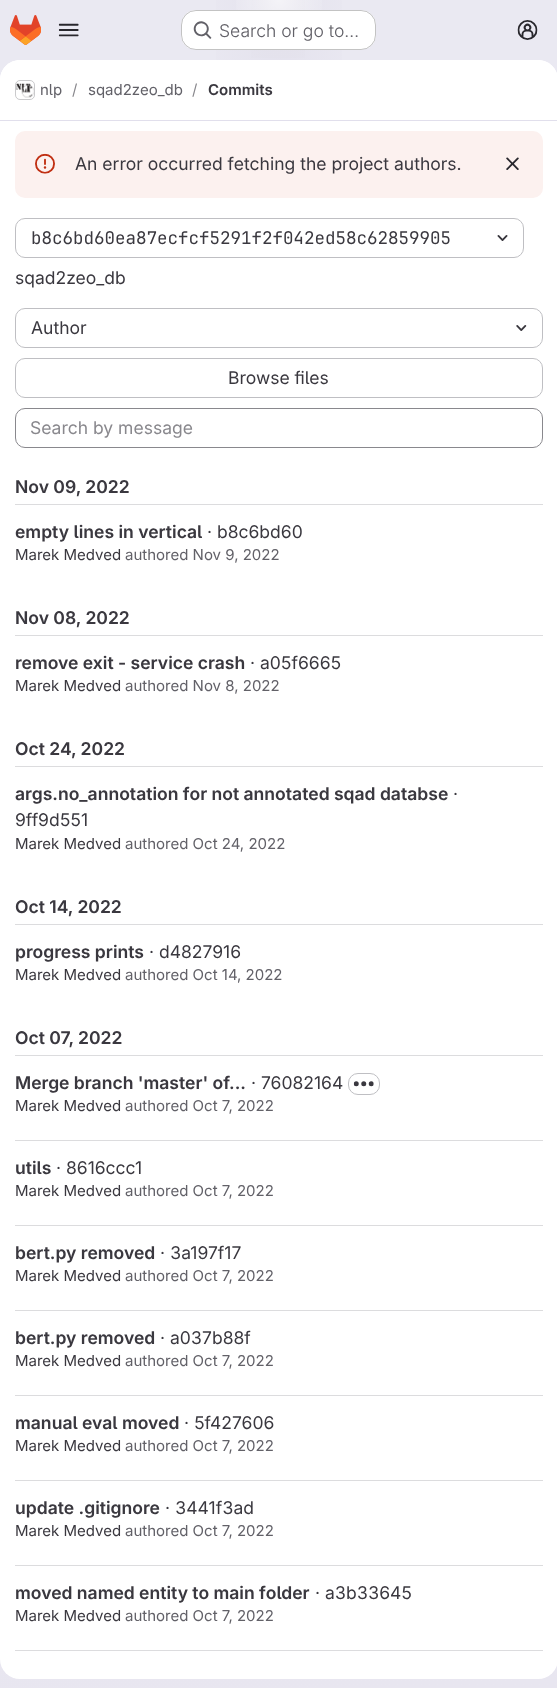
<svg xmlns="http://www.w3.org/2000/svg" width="557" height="1688">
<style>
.a{font:300 17.5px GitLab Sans;fill:#626168}
.b{font:15px GitLab Sans;fill:#626168}
.c{font:15px GitLab Sans;fill:#89888d}
.d{font:600 15px GitLab Sans;fill:#3a383f}
.e{font:17.5px GitLab Sans;fill:#3a383f}
.f{font:17.5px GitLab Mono;fill:#3a383f}
.g{font:17.5px GitLab Sans;fill:#89888d}
.h{font:600 17.5px GitLab Sans;fill:#3a383f}
.i{font:15px GitLab Sans;fill:#3a383f}
</style>
<defs>
<linearGradient id="g1" gradientUnits="userSpaceOnUse" x1="432" y1="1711" x2="126" y2="-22"><stop offset="0" stop-color="#e8e6f0"/><stop offset="0.7" stop-color="#eae9f2"/></linearGradient>
<radialGradient id="g2" gradientUnits="userSpaceOnUse" cx="0" cy="0" r="1" gradientTransform="matrix(279 0 0 1689 279 0)"><stop offset="0" stop-color="#e4e2ed"/><stop offset="0.31" stop-color="#e4e2ed" stop-opacity="0"/></radialGradient>
<radialGradient id="g3" gradientUnits="userSpaceOnUse" cx="0" cy="0" r="1" gradientTransform="matrix(279 0 0 1689 279 0)"><stop offset="0" stop-color="#e4e2ec"/><stop offset="0.22" stop-color="#e4e2ec" stop-opacity="0"/></radialGradient>
<radialGradient id="g4" gradientUnits="userSpaceOnUse" cx="279" cy="0" r="1712"><stop offset="0" stop-color="#fff" stop-opacity="0.6"/><stop offset="0.03" stop-color="#fff" stop-opacity="0"/></radialGradient>
</defs>
<rect width="100%" height="100%" fill="#fff"/>
<path fill="url(#g1)" d="M0 0h557v1688H0z"/>
<path fill="url(#g2)" d="M216 0h126v60H216z"/>
<path fill="url(#g3)" d="M251 0h54v58H251z"/>
<path fill="url(#g4)" d="M236 0h86v10H236z"/>
<image href="1.png" x="10" y="15" width="31" height="30"/>
<image href="2.png" x="58" y="23" width="21" height="14"/>
<rect fill="#fff" x="181" y="10" width="195" height="40" rx="15"/>
<rect fill="none" stroke="#0505063d" x="181.5" y="10.5" width="194" height="39" rx="14.5"/>
<image href="3.png" x="193" y="21" width="19" height="18"/>
<image href="4.png" x="517" y="20" width="21" height="20"/>
<rect fill="#fff" y="60" width="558" height="1619" rx="20"/>
<path fill="#fff" d="M20 60h518c11 0 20 9 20 20v41h-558v-41c0-11 9-20 20-20z"/>
<path fill="#e1dfec" d="M0 120h557v1H0z"/>
<rect fill="none" stroke="#dcdcde" x="15.5" y="80.5" width="19" height="19" rx="4.5"/>
<image href="5.png" x="16" y="83" width="18" height="15"/>
<rect fill="none" stroke="#05050614" x="15.5" y="80.5" width="19" height="19" rx="4.5"/>
<rect fill="#fcf1ef" x="15" y="131" width="528" height="67" rx="10"/>
<image href="6.png" x="35" y="153" width="20" height="21"/>
<image href="7.png" x="506" y="157" width="13" height="13"/>
<rect fill="none" stroke="#bfbfc3" x="15.5" y="218.5" width="508" height="39" rx="9.5"/>
<image href="8.png" x="497" y="235" width="11" height="6"/>
<rect fill="none" stroke="#bfbfc3" x="15.5" y="308.5" width="527" height="39" rx="9.5"/>
<image href="9.png" x="516" y="325" width="11" height="6"/>
<rect fill="none" stroke="#bfbfc3" x="15.5" y="358.5" width="527" height="39" rx="9.5"/>
<rect fill="none" stroke="#89888d" x="15.5" y="408.5" width="527" height="39" rx="9.5"/>
<path fill="#dcdcde" d="M15 504h528v1H15z"/>
<path fill="#dcdcde" d="M15 635h528v1H15z"/>
<path fill="#dcdcde" d="M15 766h528v1H15z"/>
<path fill="#dcdcde" d="M15 924h528v1H15z"/>
<path fill="#dcdcde" d="M15 1055h528v1H15z"/>
<path fill="#dcdcde" d="M15 1140h528v1H15z"/>
<rect fill="none" stroke="#bfbfc3" x="348.5" y="1073.5" width="31" height="21" rx="9.5"/>
<image href="10.png" x="353" y="1081" width="21" height="6"/>
<path fill="#dcdcde" d="M15 1225h528v1H15z"/>
<path fill="#dcdcde" d="M15 1310h528v1H15z"/>
<path fill="#dcdcde" d="M15 1395h528v1H15z"/>
<path fill="#dcdcde" d="M15 1480h528v1H15z"/>
<path fill="#dcdcde" d="M15 1565h528v1H15z"/>
<path fill="#dcdcde" d="M15 1650h528v1H15z"/>
<text class="a" x="219" y="37">Search or go to…</text>
<text class="b" x="40" y="95">nlp</text>
<text class="c" x="72" y="95">/</text>
<text class="b" x="88" y="95">sqad2zeo_db</text>
<text class="c" x="192" y="95">/</text>
<text class="d" x="208" y="95">Commits</text>
<text class="e" x="75" y="170">An error occurred fetching the project authors.</text>
<text class="f" x="31" y="244">b8c6bd60ea87ecfcf5291f2f042ed58c62859905</text>
<text class="e" x="15" y="284">sqad2zeo_db</text>
<text class="e" x="31" y="334">Author</text>
<text class="e" x="228" y="384">Browse files</text>
<text class="g" x="30" y="434">Search by message</text>
<text class="h" x="15" y="493">Nov 09, 2022</text>
<text class="h" x="15" y="538">empty lines in vertical</text>
<text class="e" x="207" y="538">· b8c6bd60</text>
<text class="i" x="15" y="560">Marek Medved</text>
<text class="b" x="125" y="560">authored Nov 9, 2022</text>
<text class="h" x="15" y="624">Nov 08, 2022</text>
<text class="h" x="15" y="669">remove exit - service crash</text>
<text class="e" x="250" y="669">· a05f6665</text>
<text class="i" x="15" y="691">Marek Medved</text>
<text class="b" x="125" y="691">authored Nov 8, 2022</text>
<text class="h" x="15" y="755">Oct 24, 2022</text>
<text class="h" x="15" y="800">args.no_annotation for not annotated sqad databse</text>
<text class="e" x="453" y="800">·</text>
<text class="e" x="15" y="826">9ff9d551</text>
<text class="i" x="15" y="849">Marek Medved</text>
<text class="b" x="125" y="849">authored Oct 24, 2022</text>
<text class="h" x="15" y="913">Oct 14, 2022</text>
<text class="h" x="15" y="958">progress prints</text>
<text class="e" x="149" y="958">· d4827916</text>
<text class="i" x="15" y="980">Marek Medved</text>
<text class="b" x="125" y="980">authored Oct 14, 2022</text>
<text class="h" x="15" y="1044">Oct 07, 2022</text>
<text class="h" x="15" y="1089">Merge branch 'master' of...</text>
<text class="e" x="251" y="1089">· 76082164</text>
<text class="i" x="15" y="1111">Marek Medved</text>
<text class="b" x="125" y="1111">authored Oct 7, 2022</text>
<text class="h" x="15" y="1174">utils</text>
<text class="e" x="56" y="1174">· 8616ccc1</text>
<text class="i" x="15" y="1196">Marek Medved</text>
<text class="b" x="125" y="1196">authored Oct 7, 2022</text>
<text class="h" x="15" y="1259">bert.py removed</text>
<text class="e" x="160" y="1259">· 3a197f17</text>
<text class="i" x="15" y="1281">Marek Medved</text>
<text class="b" x="125" y="1281">authored Oct 7, 2022</text>
<text class="h" x="15" y="1344">bert.py removed</text>
<text class="e" x="160" y="1344">· a037b88f</text>
<text class="i" x="15" y="1366">Marek Medved</text>
<text class="b" x="125" y="1366">authored Oct 7, 2022</text>
<text class="h" x="15" y="1429">manual eval moved</text>
<text class="e" x="184" y="1429">· 5f427606</text>
<text class="i" x="15" y="1451">Marek Medved</text>
<text class="b" x="125" y="1451">authored Oct 7, 2022</text>
<text class="h" x="15" y="1514">update .gitignore</text>
<text class="e" x="165" y="1514">· 3441f3ad</text>
<text class="i" x="15" y="1536">Marek Medved</text>
<text class="b" x="125" y="1536">authored Oct 7, 2022</text>
<text class="h" x="15" y="1599">moved named entity to main folder</text>
<text class="e" x="315" y="1599">· a3b33645</text>
<text class="i" x="15" y="1621">Marek Medved</text>
<text class="b" x="125" y="1621">authored Oct 7, 2022</text>
</svg>
